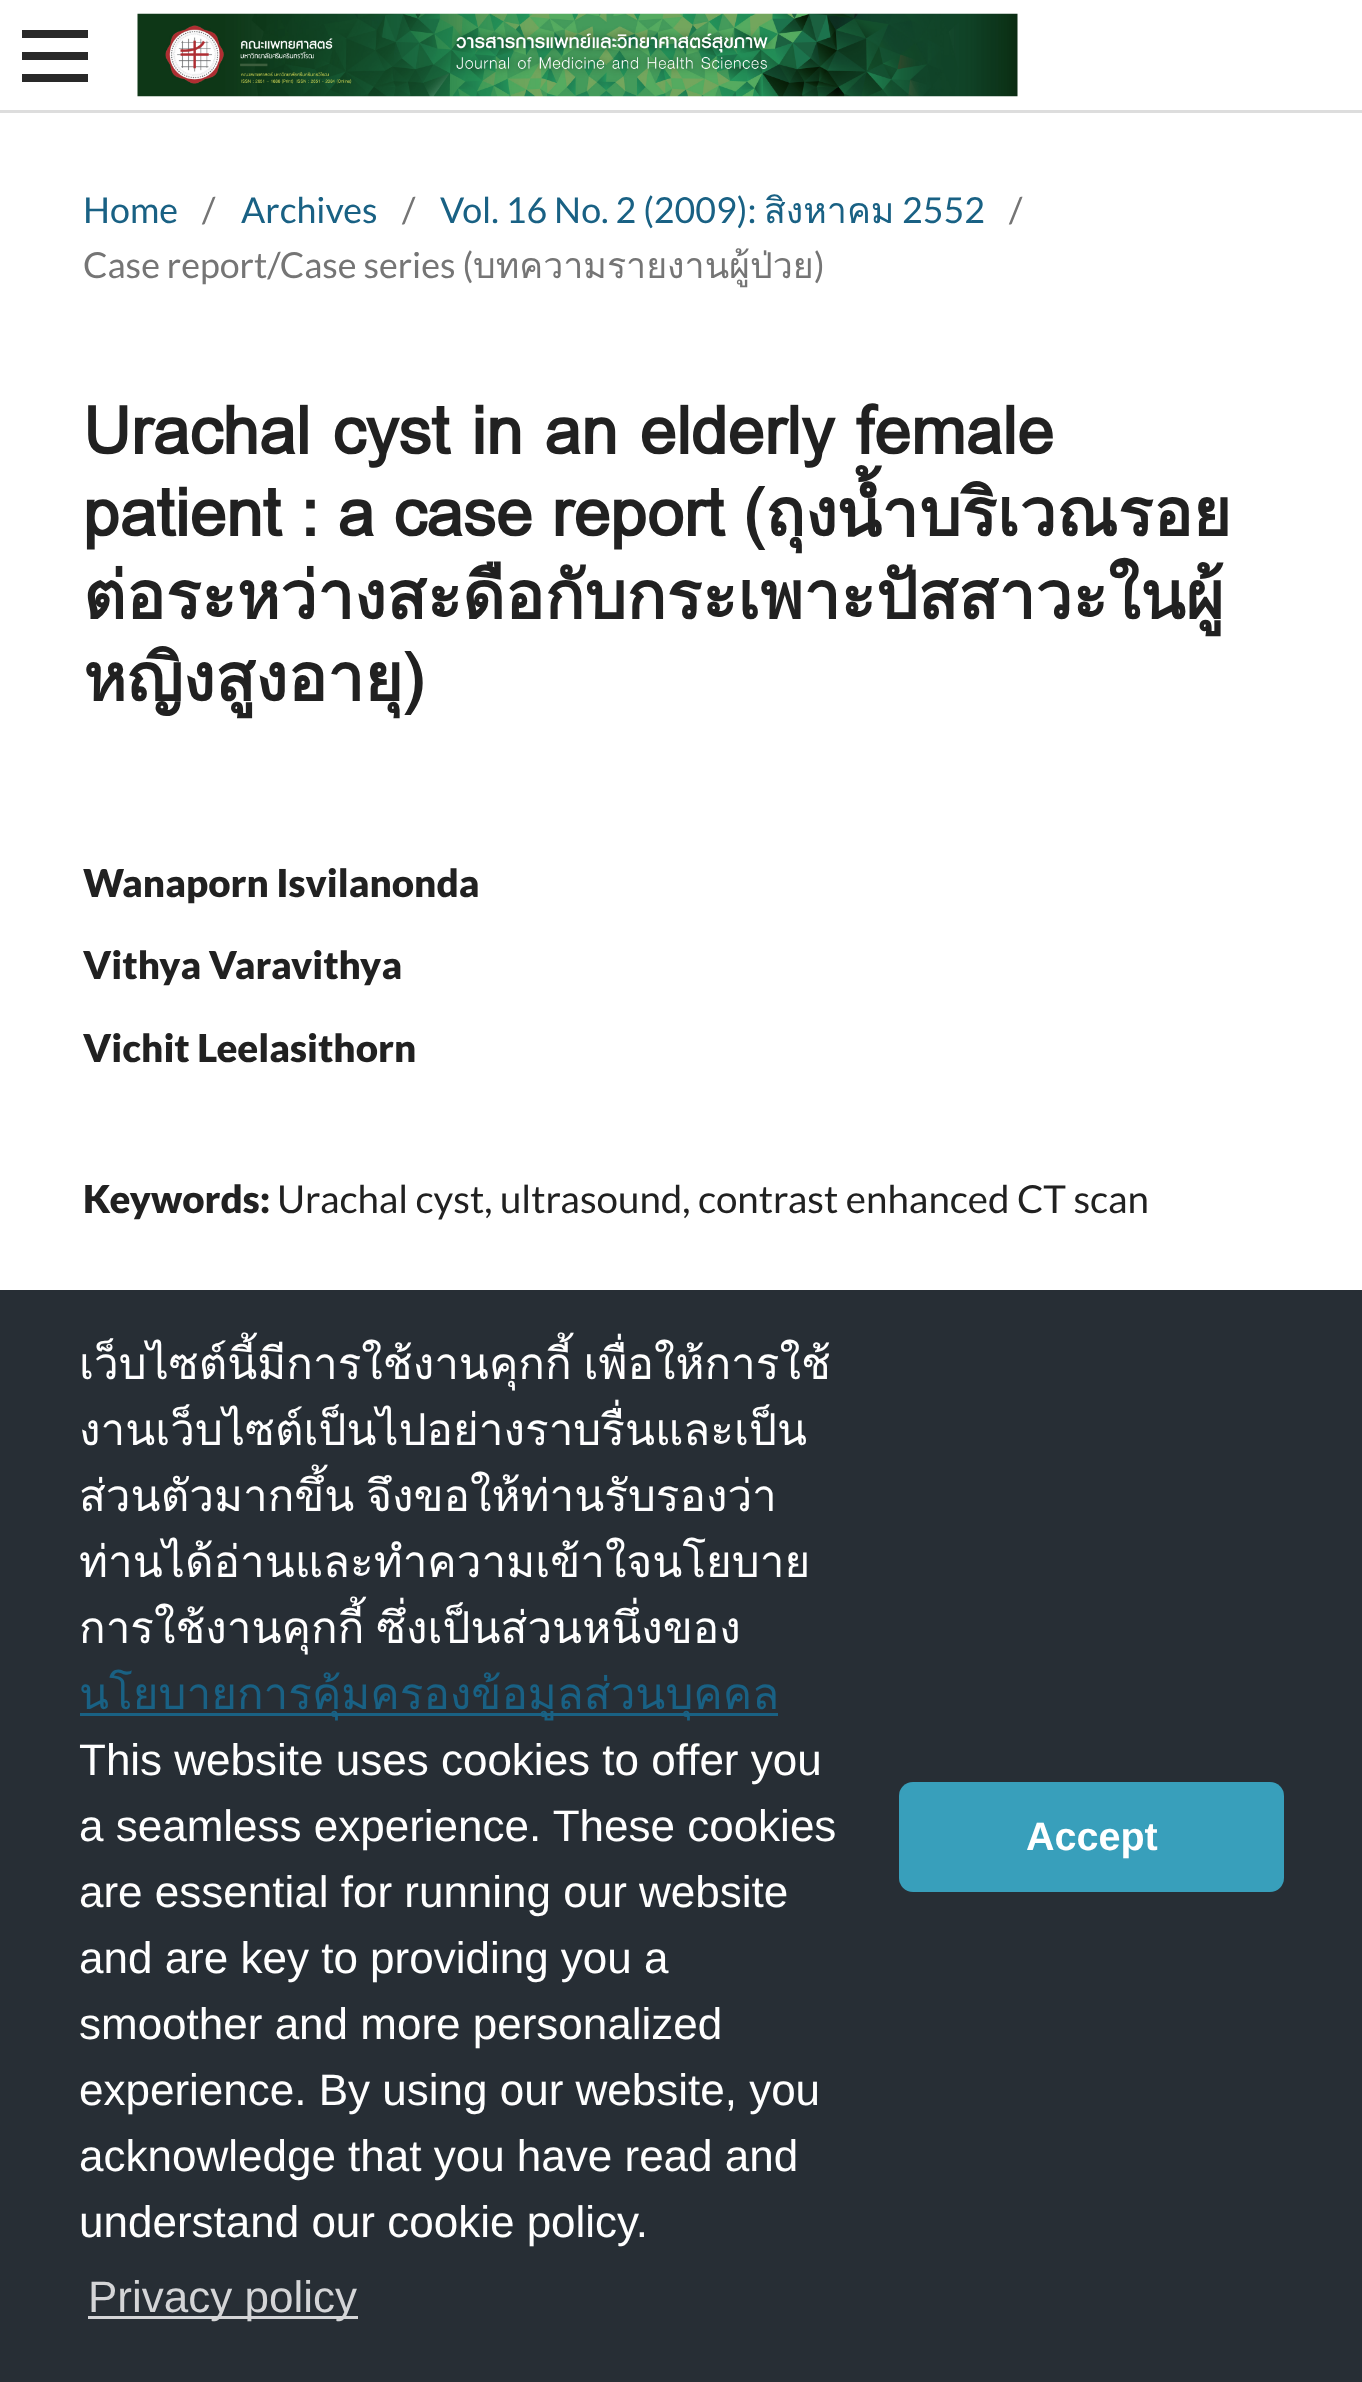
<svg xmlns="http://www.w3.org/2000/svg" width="1362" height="2382">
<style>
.a{font:35.75px Lato;fill:#196184}
.b{font:35.75px Lato;fill:#757575}
.c{font:35.75px Loma;fill:#196184}
.d{font:35.75px Loma;fill:#757575}
.e{font:bold 66px Loma;fill:#212121}
.f{font:900 38.5px Lato;fill:#212121}
.g{font:38.5px Lato;fill:#212121}
.h{font:44px Loma;fill:#fff}
.i{font:44px Loma;fill:#196184}
.j{font:44px Liberation Sans;fill:#fff}
.k{font:44px Liberation Sans;fill:#d4d5d7}
.l{font:bold 39.5px Liberation Sans;fill:#fff}
</style>
<rect width="100%" height="100%" fill="#fff"/>
<path fill="#ddd" d="M0 110h1362v3H0z"/>
<path fill="#292929" d="M22 74h66v8H22z"/>
<path fill="#292929" d="M22 30h66v8H22z"/>
<path fill="#292929" d="M22 52h66v8H22z"/>
<image href="1.png" x="137" y="13" width="881" height="84"/>
<path fill="#272e35" d="M0 1290h1362v1092H0z"/>
<path fill="#196184" d="M80 1713h698v3H80z"/>
<path fill="#d4d5d7" d="M88 2316h270v3H88z"/>
<rect fill="#389fbb" x="899" y="1782" width="385" height="110" rx="14"/>
<text class="a" x="83" y="223">Home</text>
<text class="b" x="202" y="223">/</text>
<text class="a" x="241" y="223">Archives</text>
<text class="b" x="402" y="223">/</text>
<text class="a" x="440" y="223">Vol. 16 No. 2 (2009):</text>
<text class="c" x="764" y="223">สิงหาคม</text>
<text class="a" x="902" y="223">2552</text>
<text class="b" x="1009" y="223">/</text>
<text class="b" x="83" y="278">Case report/Case series (</text>
<text class="d" x="473" y="278">บทความรายงานผู้ป่วย</text>
<text class="b" x="814" y="278">)</text>
<text class="e" x="83" y="454" word-spacing="-0.5">Urachal cyst in an elderly female</text>
<text class="e" x="83" y="536" word-spacing="-3.25">patient : a case report (ถุงน้ำบริเวณรอย</text>
<text class="e" x="83" y="619">ต่อระหว่างสะดือกับกระเพาะปัสสาวะในผู้</text>
<text class="e" x="83" y="701">หญิงสูงอายุ)</text>
<text class="f" x="83" y="897">Wanaporn Isvilanonda</text>
<text class="f" x="83" y="979">Vithya Varavithya</text>
<text class="f" x="83" y="1062">Vichit Leelasithorn</text>
<text class="f" x="83" y="1213">Keywords:</text>
<text class="g" x="277" y="1213">Urachal cyst, ultrasound, contrast enhanced CT scan</text>
<text class="h" x="79" y="1379" word-spacing="-3">เว็บไซต์นี้มีการใช้งานคุกกี้ เพื่อให้การใช้</text>
<text class="h" x="79" y="1445">งานเว็บไซต์เป็นไปอย่างราบรื่นและเป็น</text>
<text class="h" x="79" y="1511" word-spacing="-3">ส่วนตัวมากขึ้น จึงขอให้ท่านรับรองว่า</text>
<text class="h" x="79" y="1577">ท่านได้อ่านและทำความเข้าใจนโยบาย</text>
<text class="h" x="79" y="1643" word-spacing="-3">การใช้งานคุกกี้ ซึ่งเป็นส่วนหนึ่งของ</text>
<text class="i" x="79" y="1709">นโยบายการคุ้มครองข้อมูลส่วนบุคคล</text>
<text class="j" x="79" y="1775">This website uses cookies to offer you</text>
<text class="j" x="79" y="1841">a seamless experience. These cookies</text>
<text class="j" x="79" y="1907">are essential for running our website</text>
<text class="j" x="79" y="1973">and are key to providing you a</text>
<text class="j" x="79" y="2039">smoother and more personalized</text>
<text class="j" x="79" y="2105">experience. By using our website, you</text>
<text class="j" x="79" y="2171">acknowledge that you have read and</text>
<text class="j" x="79" y="2237">understand our cookie policy.</text>
<text class="k" x="88" y="2312">Privacy policy</text>
<text class="l" x="1026" y="1850">Accept</text>
</svg>
